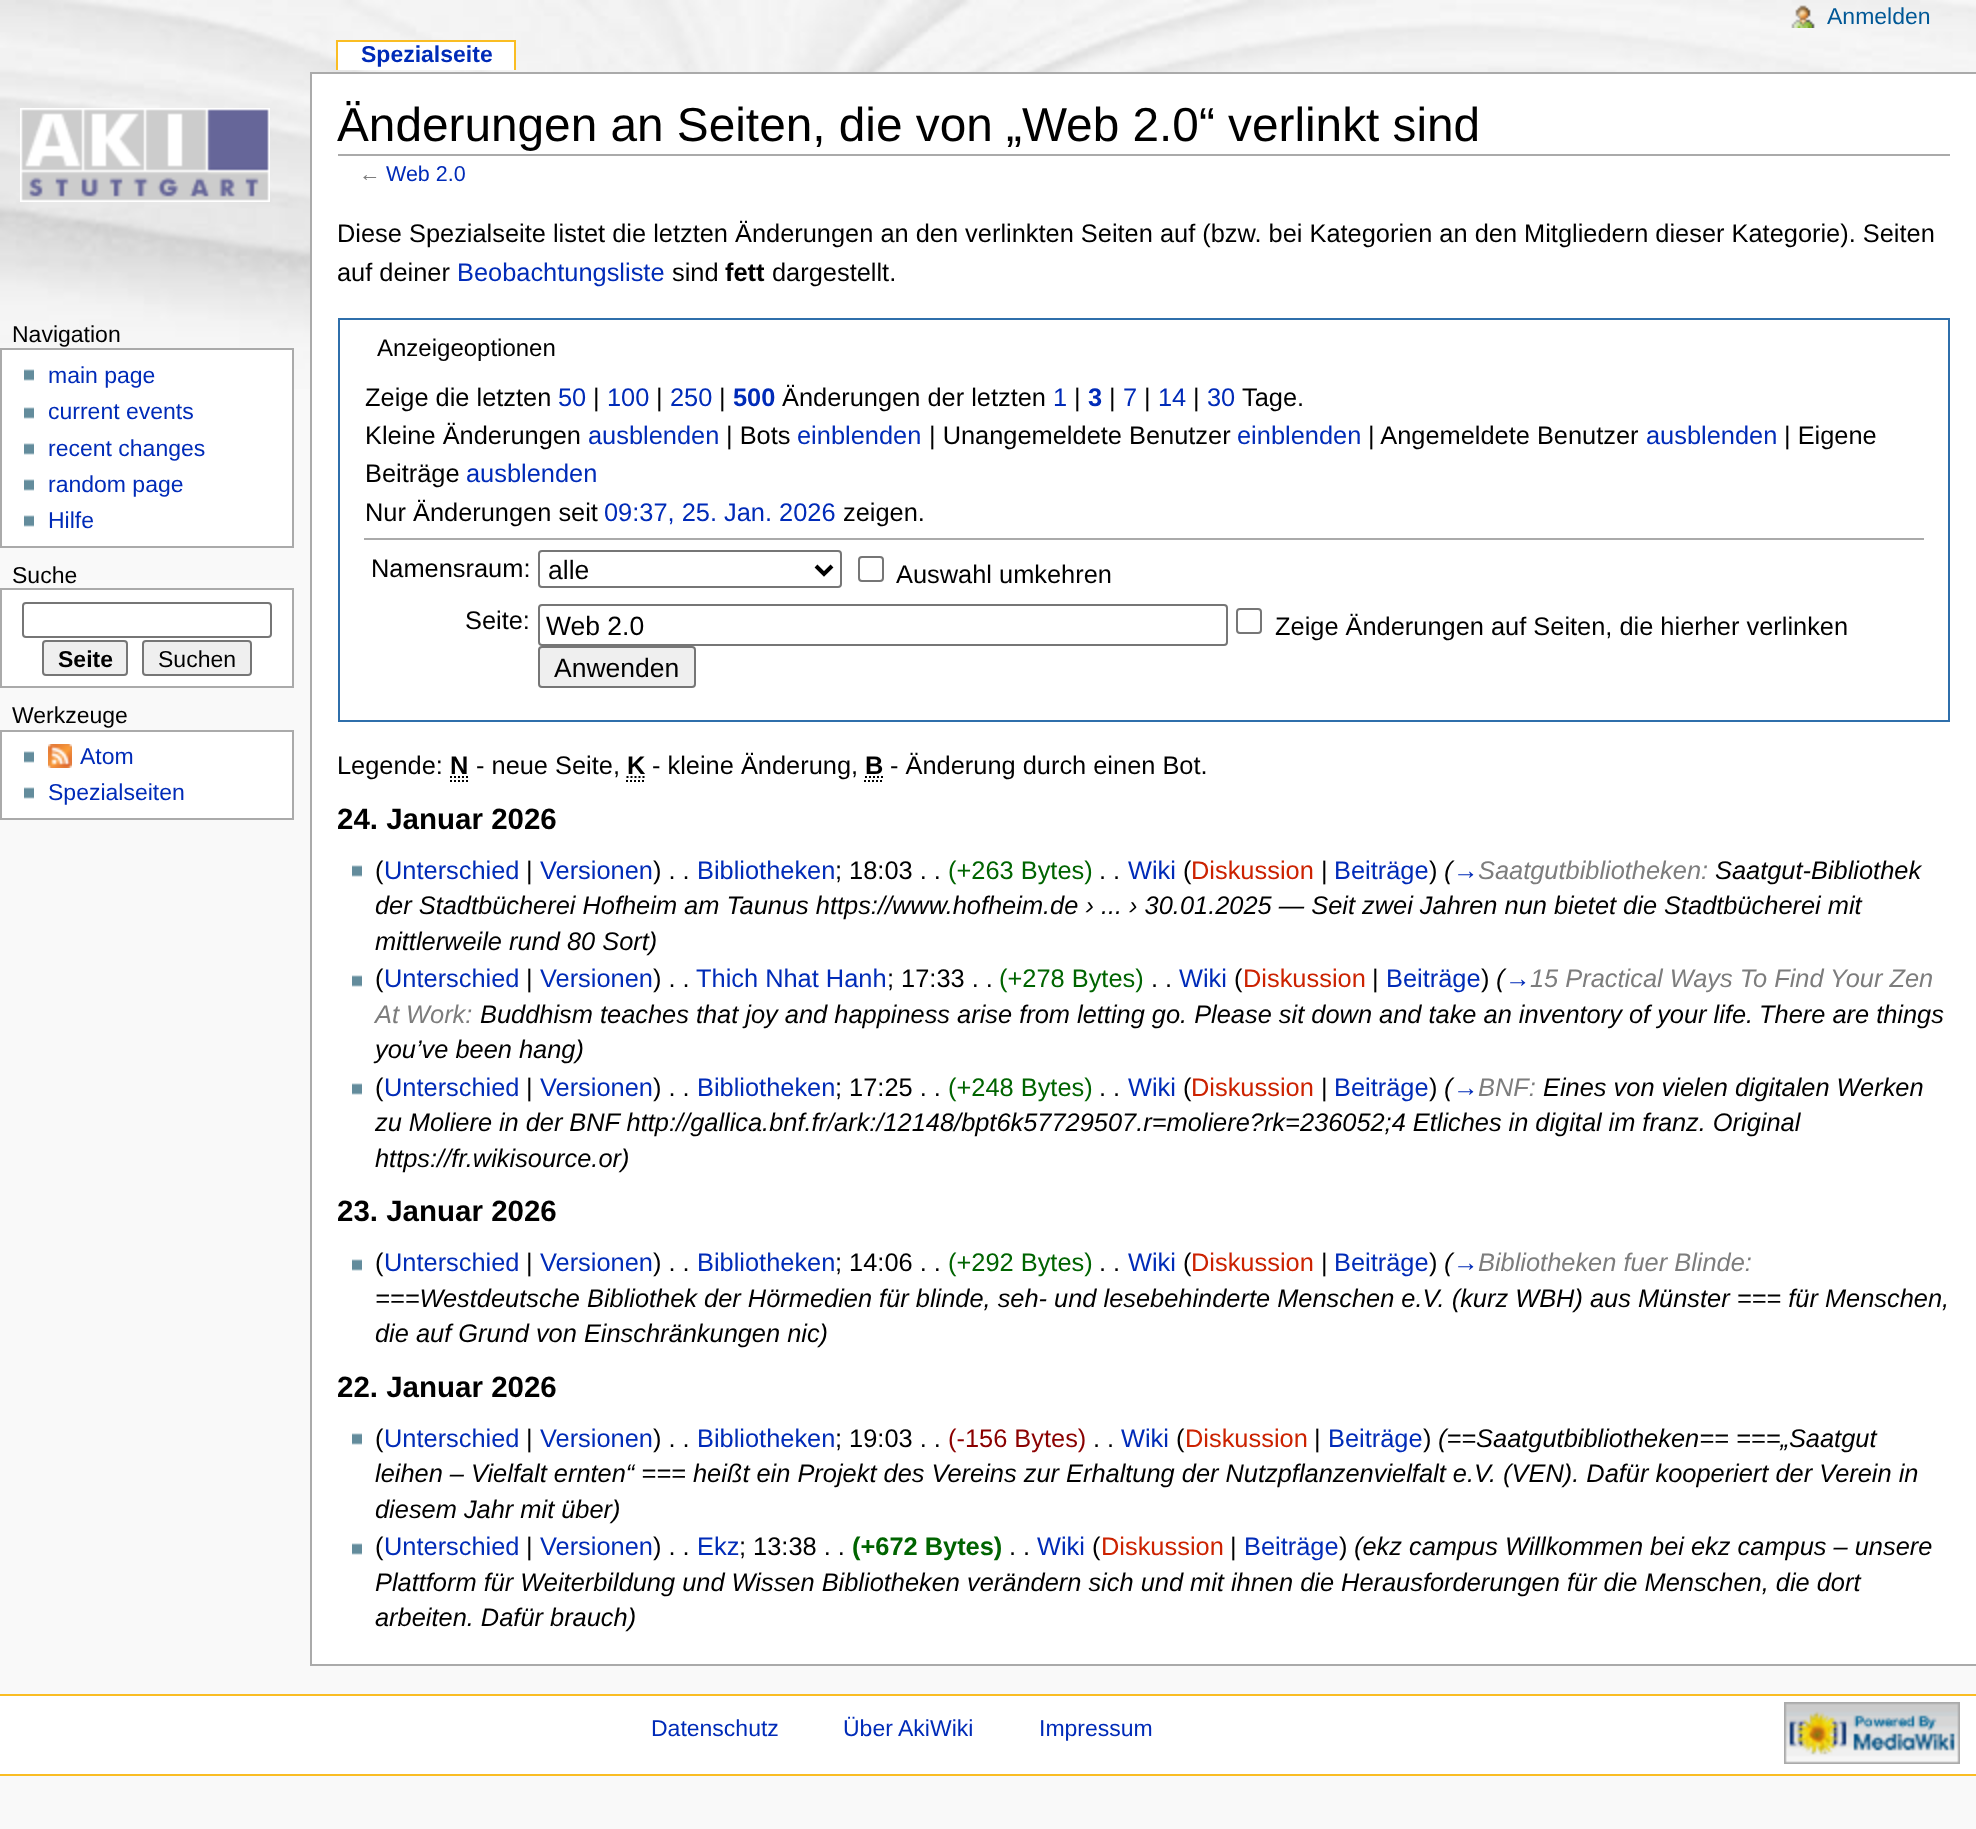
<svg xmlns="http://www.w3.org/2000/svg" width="1976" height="1829">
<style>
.a{font:23px Liberation Sans;fill:#005896}
.b{font:bold 23px Liberation Sans;fill:#002bb8}
.c{font:23px Liberation Sans;fill:#000}
.d{font:23px Liberation Sans;fill:#002bb8}
.e{font:bold 23px Liberation Sans;fill:#000}
.f{font:47.75px Liberation Sans;fill:#000}
.g{font:21.5px Liberation Sans;fill:#7d7d7d}
.h{font:21.5px Liberation Sans;fill:#002bb8}
.i{font:25.4px Liberation Sans;fill:#000}
.j{font:25.4px Liberation Sans;fill:#002bb8}
.k{font:bold 25.4px Liberation Sans;fill:#000}
.l{font:24px Liberation Sans;fill:#000}
.m{font:bold 25.4px Liberation Sans;fill:#002bb8}
.n{font:26.5px Liberation Sans;fill:#000}
.o{font:bold 29.5px Liberation Sans;fill:#000}
.p{font:25.4px Liberation Sans;fill:#006400}
.q{font:25.4px Liberation Sans;fill:#c20}
.r{font:italic 25.4px Liberation Sans;fill:#000}
.s{font:italic 25.4px Liberation Sans;fill:#002bb8}
.t{font:italic 25.4px Liberation Sans;fill:#7d7d7d}
.u{font:25.4px Liberation Sans;fill:#8b0000}
.v{font:bold 25.4px Liberation Sans;fill:#006400}
</style>
<rect width="100%" height="100%" fill="#f9f9f9"/>
<image href="1.png" x="0" y="0" width="1976" height="389"/>
<image href="2.png" x="1791" y="5" width="24" height="23"/>
<path fill="#fff" d="M338 42h176v28H338z"/>
<path fill="#fabd23" d="M336 40h180v2H336z"/>
<path fill="#fabd23" d="M514 40h2v30H514z"/>
<path fill="#fabd23" d="M336 40h2v30H336z"/>
<image href="3.png" x="20" y="108" width="250" height="94"/>
<path fill="#fff" stroke="#aaa" stroke-width="2" d="M1 349h292v198H1z"/>
<image href="4.png" x="24" y="369" width="10" height="12"/>
<image href="4.png" x="24" y="407" width="10" height="12"/>
<image href="4.png" x="24" y="443" width="10" height="12"/>
<image href="4.png" x="24" y="479" width="10" height="12"/>
<image href="4.png" x="24" y="515" width="10" height="12"/>
<path fill="#fff" stroke="#aaa" stroke-width="2" d="M1 589h292v98H1z"/>
<rect fill="none" stroke="#767676" stroke-width="2" x="23" y="603" width="248" height="34" rx="3"/>
<rect fill="#efefef" stroke="#767676" stroke-width="2" x="43" y="641" width="84" height="34" rx="3"/>
<rect fill="#efefef" stroke="#767676" stroke-width="2" x="143" y="641" width="108" height="34" rx="3"/>
<path fill="#fff" stroke="#aaa" stroke-width="2" d="M1 731h292v88H1z"/>
<image href="4.png" x="24" y="751" width="10" height="12"/>
<image href="5.png" x="48" y="744" width="24" height="24"/>
<image href="4.png" x="24" y="787" width="10" height="12"/>
<path fill="#fff" d="M312 74h1664v1590H312z"/>
<path fill="#aaa" d="M310 72h1666v2H310z"/>
<path fill="#aaa" d="M310 1664h1666v2H310z"/>
<path fill="#aaa" d="M310 72h2v1594H310z"/>
<path fill="#aaa" d="M338 154h1612v2H338z"/>
<path fill="none" stroke="#2f6fab" stroke-width="2" d="M339 319h1610v402H339z"/>
<path fill="#aaa" d="M364 538h1560v2H364z"/>
<rect fill="none" stroke="#767676" stroke-width="2" x="539" y="551" width="302" height="36" rx="3"/>
<path fill="none" stroke="#000" stroke-width="4" d="M816 566l8 8l8-8"/>
<rect fill="none" stroke="#767676" stroke-width="2" x="859" y="557" width="24" height="24" rx="3"/>
<rect fill="none" stroke="#767676" stroke-width="2" x="539" y="605" width="688" height="40" rx="3"/>
<rect fill="none" stroke="#767676" stroke-width="2" x="1237" y="609" width="24" height="24" rx="3"/>
<rect fill="#efefef" stroke="#767676" stroke-width="2" x="539" y="647" width="156" height="40" rx="3"/>
<path fill="none" stroke="#000" stroke-width="2" stroke-dasharray="2 2" d="M450 781h18m-18-4h18.5"/>
<path fill="none" stroke="#000" stroke-width="2" stroke-dasharray="2 2" d="M626 781h18m-17.5-4h18.5"/>
<path fill="none" stroke="#000" stroke-width="2" stroke-dasharray="2 2" d="M864 781h20m-19-4h18"/>
<image href="4.png" x="352" y="865" width="10" height="12"/>
<image href="4.png" x="352" y="975" width="10" height="12"/>
<image href="4.png" x="352" y="1083" width="10" height="12"/>
<image href="4.png" x="352" y="1259" width="10" height="12"/>
<image href="4.png" x="352" y="1433" width="10" height="12"/>
<image href="4.png" x="352" y="1543" width="10" height="12"/>
<path fill="#fff" d="M0 1696h1976v78H0z"/>
<path fill="#fabd23" d="M0 1694h1976v2H0z"/>
<path fill="#fabd23" d="M0 1774h1976v2H0z"/>
<image href="6.png" x="1784" y="1702" width="176" height="62"/>
<text class="a" x="1827" y="24">Anmelden</text>
<text class="b" x="361" y="62">Spezialseite</text>
<text class="c" x="12" y="342">Navigation</text>
<text class="d" x="48" y="383">main page</text>
<text class="d" x="48" y="419">current events</text>
<text class="d" x="48" y="456">recent changes</text>
<text class="d" x="48" y="492">random page</text>
<text class="d" x="48" y="528">Hilfe</text>
<text class="c" x="12" y="583">Suche</text>
<text class="e" x="58" y="667">Seite</text>
<text class="c" x="158" y="667">Suchen</text>
<text class="c" x="12" y="723">Werkzeuge</text>
<text class="d" x="80" y="764">Atom</text>
<text class="d" x="48" y="800">Spezialseiten</text>
<text class="f" x="337" y="141">Änderungen an Seiten, die von „Web 2.0“ verlinkt sind</text>
<text class="g" x="359" y="181">←</text>
<text class="h" x="386" y="181">Web 2.0</text>
<text class="i" x="337" y="242">Diese Spezialseite listet die letzten Änderungen an den verlinkten Seiten auf (bzw. bei Kategorien an den Mitgliedern dieser Kategorie). Seiten</text>
<text class="i" x="337" y="281">auf deiner</text>
<text class="j" x="457" y="281">Beobachtungsliste</text>
<text class="i" x="672" y="281">sind</text>
<text class="k" x="725" y="281">fett</text>
<text class="i" x="772" y="281">dargestellt.</text>
<text class="l" x="377" y="356">Anzeigeoptionen</text>
<text class="i" x="365" y="406">Zeige die letzten</text>
<text class="j" x="558" y="406">50</text>
<text class="i" x="593" y="406">|</text>
<text class="j" x="607" y="406">100</text>
<text class="i" x="656" y="406">|</text>
<text class="j" x="670" y="406">250</text>
<text class="i" x="719" y="406">|</text>
<text class="m" x="733" y="406">500</text>
<text class="i" x="782" y="406">Änderungen der letzten</text>
<text class="j" x="1053" y="406">1</text>
<text class="i" x="1074" y="406">|</text>
<text class="m" x="1088" y="406">3</text>
<text class="i" x="1109" y="406">|</text>
<text class="j" x="1123" y="406">7</text>
<text class="i" x="1144" y="406">|</text>
<text class="j" x="1158" y="406">14</text>
<text class="i" x="1193" y="406">|</text>
<text class="j" x="1207" y="406">30</text>
<text class="i" x="1242" y="406">Tage.</text>
<text class="i" x="365" y="444">Kleine Änderungen</text>
<text class="j" x="588" y="444">ausblenden</text>
<text class="i" x="726" y="444">| Bots</text>
<text class="j" x="797" y="444">einblenden</text>
<text class="i" x="929" y="444">| Unangemeldete Benutzer</text>
<text class="j" x="1237" y="444">einblenden</text>
<text class="i" x="1368" y="444">| Angemeldete Benutzer</text>
<text class="j" x="1646" y="444">ausblenden</text>
<text class="i" x="1784" y="444">| Eigene</text>
<text class="i" x="365" y="482">Beiträge</text>
<text class="j" x="466" y="482">ausblenden</text>
<text class="i" x="365" y="521">Nur Änderungen seit</text>
<text class="j" x="604" y="521">09:37, 25. Jan. 2026</text>
<text class="i" x="843" y="521">zeigen.</text>
<text class="i" x="371" y="577">Namensraum:</text>
<text class="n" x="548" y="579">alle</text>
<text class="i" x="896" y="583">Auswahl umkehren</text>
<text class="i" x="465" y="629">Seite:</text>
<text class="n" x="546" y="635">Web 2.0</text>
<text class="i" x="1275" y="635">Zeige Änderungen auf Seiten, die hierher verlinken</text>
<text class="n" x="554" y="677">Anwenden</text>
<text class="i" x="337" y="774">Legende:</text>
<text class="k" x="450" y="774">N</text>
<text class="i" x="476" y="774">- neue Seite,</text>
<text class="k" x="627" y="774">K</text>
<text class="i" x="652" y="774">- kleine Änderung,</text>
<text class="k" x="865" y="774">B</text>
<text class="i" x="890" y="774">- Änderung durch einen Bot.</text>
<text class="o" x="337" y="829">24. Januar 2026</text>
<text class="i" x="375" y="879">(</text>
<text class="j" x="384" y="879">Unterschied</text>
<text class="i" x="526" y="879">|</text>
<text class="j" x="540" y="879">Versionen</text>
<text class="i" x="653" y="879">) . .</text>
<text class="j" x="697" y="879">Bibliotheken</text>
<text class="i" x="835" y="879">; 18:03 . .</text>
<text class="p" x="948" y="879">(+263 Bytes)</text>
<text class="i" x="1099" y="879">. .</text>
<text class="j" x="1128" y="879">Wiki</text>
<text class="i" x="1183" y="879">(</text>
<text class="q" x="1191" y="879">Diskussion</text>
<text class="i" x="1321" y="879">|</text>
<text class="j" x="1334" y="879">Beiträge</text>
<text class="i" x="1429" y="879">)</text>
<text class="r" x="1444" y="879">(</text>
<text class="s" x="1453" y="879">→</text>
<text class="t" x="1478" y="879">Saatgutbibliotheken:</text>
<text class="r" x="1715" y="879">Saatgut-Bibliothek</text>
<text class="r" x="375" y="914">der Stadtbücherei Hofheim am Taunus https://www.hofheim.de › ... › 30.01.2025 — Seit zwei Jahren nun bietet die Stadtbücherei mit</text>
<text class="r" x="375" y="950">mittlerweile rund 80 Sort)</text>
<text class="i" x="375" y="987">(</text>
<text class="j" x="384" y="987">Unterschied</text>
<text class="i" x="526" y="987">|</text>
<text class="j" x="540" y="987">Versionen</text>
<text class="i" x="653" y="987">) . .</text>
<text class="j" x="696" y="987">Thich Nhat Hanh</text>
<text class="i" x="887" y="987">; 17:33 . .</text>
<text class="p" x="999" y="987">(+278 Bytes)</text>
<text class="i" x="1151" y="987">. .</text>
<text class="j" x="1179" y="987">Wiki</text>
<text class="i" x="1234" y="987">(</text>
<text class="q" x="1243" y="987">Diskussion</text>
<text class="i" x="1372" y="987">|</text>
<text class="j" x="1386" y="987">Beiträge</text>
<text class="i" x="1481" y="987">)</text>
<text class="r" x="1496" y="987">(</text>
<text class="s" x="1505" y="987">→</text>
<text class="t" x="1530" y="987">15 Practical Ways To Find Your Zen</text>
<text class="t" x="375" y="1023">At Work:</text>
<text class="r" x="480" y="1023">Buddhism teaches that joy and happiness arise from letting go. Please sit down and take an inventory of your life.</text>
<text class="r" x="1759" y="1023">There are things</text>
<text class="r" x="375" y="1058">you’ve been hang)</text>
<text class="i" x="375" y="1096">(</text>
<text class="j" x="384" y="1096">Unterschied</text>
<text class="i" x="526" y="1096">|</text>
<text class="j" x="540" y="1096">Versionen</text>
<text class="i" x="653" y="1096">) . .</text>
<text class="j" x="697" y="1096">Bibliotheken</text>
<text class="i" x="835" y="1096">; 17:25 . .</text>
<text class="p" x="948" y="1096">(+248 Bytes)</text>
<text class="i" x="1099" y="1096">. .</text>
<text class="j" x="1128" y="1096">Wiki</text>
<text class="i" x="1183" y="1096">(</text>
<text class="q" x="1191" y="1096">Diskussion</text>
<text class="i" x="1321" y="1096">|</text>
<text class="j" x="1334" y="1096">Beiträge</text>
<text class="i" x="1429" y="1096">)</text>
<text class="r" x="1444" y="1096">(</text>
<text class="s" x="1453" y="1096">→</text>
<text class="t" x="1478" y="1096">BNF:</text>
<text class="r" x="1543" y="1096">Eines von vielen digitalen Werken</text>
<text class="r" x="375" y="1131" word-spacing="-0.1">zu Moliere in der BNF http://gallica.bnf.fr/ark:/12148/bpt6k57729507.r=moliere?rk=236052;4 Etliches in digital im franz. Original</text>
<text class="r" x="375" y="1167">https://fr.wikisource.or)</text>
<text class="o" x="337" y="1221">23. Januar 2026</text>
<text class="i" x="375" y="1271">(</text>
<text class="j" x="384" y="1271">Unterschied</text>
<text class="i" x="526" y="1271">|</text>
<text class="j" x="540" y="1271">Versionen</text>
<text class="i" x="653" y="1271">) . .</text>
<text class="j" x="697" y="1271">Bibliotheken</text>
<text class="i" x="835" y="1271">; 14:06 . .</text>
<text class="p" x="948" y="1271">(+292 Bytes)</text>
<text class="i" x="1099" y="1271">. .</text>
<text class="j" x="1128" y="1271">Wiki</text>
<text class="i" x="1183" y="1271">(</text>
<text class="q" x="1191" y="1271">Diskussion</text>
<text class="i" x="1321" y="1271">|</text>
<text class="j" x="1334" y="1271">Beiträge</text>
<text class="i" x="1429" y="1271">)</text>
<text class="r" x="1444" y="1271">(</text>
<text class="s" x="1453" y="1271">→</text>
<text class="t" x="1478" y="1271">Bibliotheken fuer Blinde:</text>
<text class="r" x="375" y="1307">===Westdeutsche Bibliothek der Hörmedien für blinde, seh- und lesebehinderte Menschen e.V. (kurz WBH) aus Münster === für Menschen,</text>
<text class="r" x="375" y="1342">die auf Grund von Einschränkungen nic)</text>
<text class="o" x="337" y="1397">22. Januar 2026</text>
<text class="i" x="375" y="1447">(</text>
<text class="j" x="384" y="1447">Unterschied</text>
<text class="i" x="526" y="1447">|</text>
<text class="j" x="540" y="1447">Versionen</text>
<text class="i" x="653" y="1447">) . .</text>
<text class="j" x="697" y="1447">Bibliotheken</text>
<text class="i" x="835" y="1447">; 19:03 . .</text>
<text class="u" x="948" y="1447">(-156 Bytes)</text>
<text class="i" x="1093" y="1447">. .</text>
<text class="j" x="1121" y="1447">Wiki</text>
<text class="i" x="1176" y="1447">(</text>
<text class="q" x="1185" y="1447">Diskussion</text>
<text class="i" x="1314" y="1447">|</text>
<text class="j" x="1328" y="1447">Beiträge</text>
<text class="i" x="1423" y="1447">)</text>
<text class="r" x="1438" y="1447">(==Saatgutbibliotheken==</text>
<text class="r" x="1736" y="1447">===„Saatgut</text>
<text class="r" x="375" y="1482">leihen – Vielfalt ernten“ ===</text>
<text class="r" x="693" y="1482">heißt ein Projekt des Vereins zur Erhaltung der Nutzpflanzenvielfalt e.V. (VEN). Dafür kooperiert der Verein in</text>
<text class="r" x="375" y="1518">diesem Jahr mit über)</text>
<text class="i" x="375" y="1555">(</text>
<text class="j" x="384" y="1555">Unterschied</text>
<text class="i" x="526" y="1555">|</text>
<text class="j" x="540" y="1555">Versionen</text>
<text class="i" x="653" y="1555">) . .</text>
<text class="j" x="697" y="1555">Ekz</text>
<text class="i" x="739" y="1555">; 13:38 . .</text>
<text class="v" x="852" y="1555">(+672 Bytes)</text>
<text class="i" x="1009" y="1555">. .</text>
<text class="j" x="1037" y="1555">Wiki</text>
<text class="i" x="1092" y="1555">(</text>
<text class="q" x="1101" y="1555">Diskussion</text>
<text class="i" x="1230" y="1555">|</text>
<text class="j" x="1244" y="1555">Beiträge</text>
<text class="i" x="1339" y="1555">)</text>
<text class="r" x="1354" y="1555">(ekz campus Willkommen bei ekz campus – unsere</text>
<text class="r" x="375" y="1591">Plattform für Weiterbildung und Wissen Bibliotheken verändern sich und mit ihnen die Herausforderungen für die Menschen, die dort</text>
<text class="r" x="375" y="1626">arbeiten. Dafür brauch)</text>
<text class="d" x="651" y="1736">Datenschutz</text>
<text class="d" x="843" y="1736">Über AkiWiki</text>
<text class="d" x="1039" y="1736">Impressum</text>
</svg>
